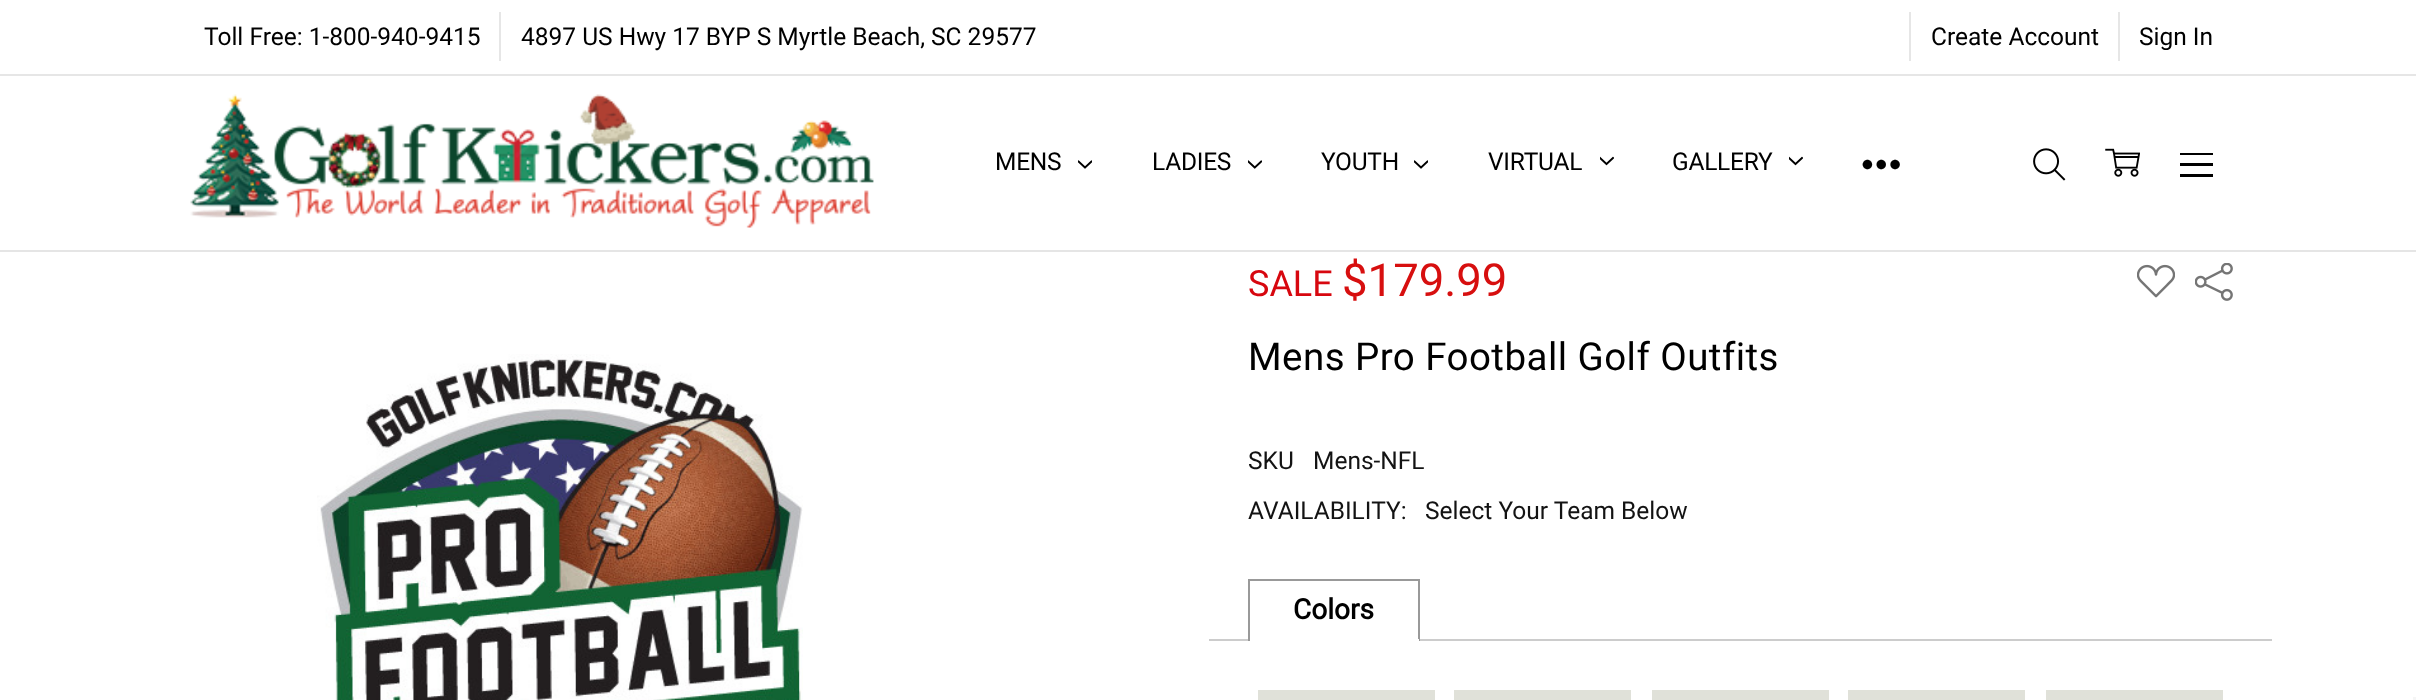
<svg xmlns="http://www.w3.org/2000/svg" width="2416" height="700">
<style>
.a{font:24.5px Roboto;fill:#000}
.b{font:24.5px Roboto;letter-spacing:-0.25px;fill:#000}
.c{font:36px Roboto;fill:#d7070f}
.d{font:45.5px Roboto;fill:#d70f0f}
.e{font:38.5px Roboto;letter-spacing:0.45px;fill:#000}
.f{font:24.5px Roboto;fill:#131313}
.g{font:bold 28px Roboto;fill:#000}
</style>
<rect width="100%" height="100%" fill="#fff"/>
<path fill="#e5e5e5" d="M0 250h2416v2H0z"/>
<path fill="#e6e6e6" d="M0 74h2416v2H0z"/>
<path fill="#e6e6e6" d="M499 12h2v49H499z"/>
<path fill="#e6e6e6" d="M1909 12h2v49H1909z"/>
<path fill="#e6e6e6" d="M2118 12h2v49H2118z"/>
<image href="1.png" x="190" y="94" width="684" height="134"/>
<image href="2.png" x="1078" y="160" width="14" height="9"/>
<image href="3.png" x="1248" y="160" width="14" height="9"/>
<image href="2.png" x="1414" y="160" width="14" height="9"/>
<image href="4.png" x="1600" y="156" width="14" height="10"/>
<image href="4.png" x="1789" y="156" width="14" height="10"/>
<image href="5.png" x="1862" y="159" width="38" height="11"/>
<image href="6.png" x="2033" y="148" width="33" height="33"/>
<image href="7.png" x="2105" y="148" width="35" height="29"/>
<path fill="#000" d="M2180 153h33v2H2180z"/>
<path fill="#000" d="M2180 163h33v3H2180z"/>
<path fill="#000" d="M2180 174h33v3H2180z"/>
<image href="8.png" x="317" y="354" width="486" height="346"/>
<image href="9.png" x="2137" y="264" width="38" height="34"/>
<image href="10.png" x="2195" y="263" width="38" height="38"/>
<path fill="#ccc" d="M1209 639h1063v2H1209z"/>
<path fill="#999" d="M1248 579h171v2H1248z"/>
<path fill="#999" d="M1418 579h2v62H1418z"/>
<path fill="#fff" d="M1248 639h171v2H1248z"/>
<path fill="#999" d="M1248 579h2v62H1248z"/>
<path fill="#e0e1d9" d="M1258 690h177v10H1258z"/>
<path fill="#e0e1d9" d="M1454 690h177v10H1454z"/>
<path fill="#e0e1d9" d="M1652 690h177v10H1652z"/>
<path fill="#e0e1d9" d="M1848 690h177v10H1848z"/>
<path fill="#e0e1d9" d="M2046 690h177v10H2046z"/>
<path fill="#f5f5f5" d="M2413 697h3v3H2413z"/>
<text class="a" x="204" y="45">Toll Free: 1-800-940-9415</text>
<text class="a" x="521" y="45">4897 US Hwy 17 BYP S Myrtle Beach, SC 29577</text>
<text class="a" x="1931" y="45">Create Account</text>
<text class="a" x="2139" y="45">Sign In</text>
<text class="b" x="995" y="170">MENS</text>
<text class="b" x="1152" y="170">LADIES</text>
<text class="b" x="1321" y="170">YOUTH</text>
<text class="b" x="1488" y="170">VIRTUAL</text>
<text class="b" x="1672" y="170">GALLERY</text>
<text class="c" x="1248" y="296">SALE</text>
<text class="d" x="1342" y="296">$179.99</text>
<text class="e" x="1248" y="370">Mens Pro Football Golf Outfits</text>
<text class="f" x="1248" y="469">SKU</text>
<text class="f" x="1313" y="469">Mens-NFL</text>
<text class="f" x="1248" y="519">AVAILABILITY:</text>
<text class="f" x="1425" y="519">Select Your Team Below</text>
<text class="g" x="1293" y="619">Colors</text>
</svg>
